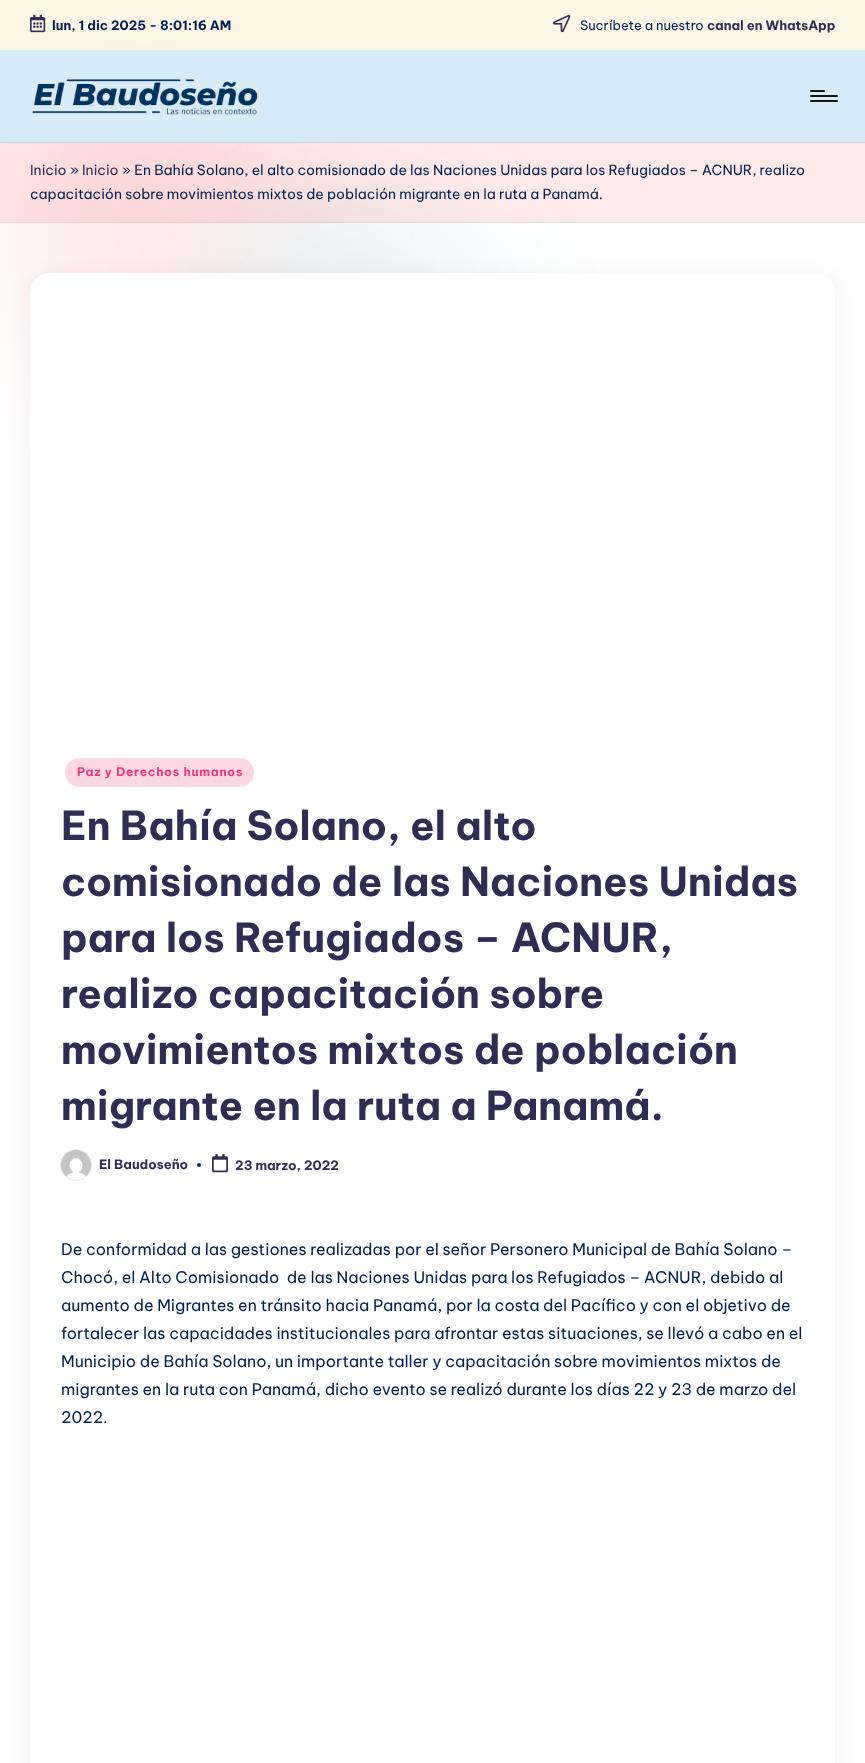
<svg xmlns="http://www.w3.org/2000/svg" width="865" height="1763">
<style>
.a{font:bold 13px Be Vietnam Pro;fill:#002050}
.b{font:13px Be Vietnam Pro;fill:#002050}
.c{font:bold 13px Be Vietnam Pro;fill:#302d55}
.d{font:14px Be Vietnam Pro;fill:#302d55}
.e{font:14px Be Vietnam Pro;fill:#002050}
.f{font:bold 12px Be Vietnam Pro;letter-spacing:0.75px;fill:#f43676}
.g{font:bold 40px Be Vietnam Pro;fill:#302d55}
.h{font:16px Be Vietnam Pro;fill:#002050}
</style>
<defs>
<clipPath id="clip1"><path d="M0 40h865v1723H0z"/></clipPath>
</defs>
<rect width="100%" height="100%" fill="#fff"/>
<g clip-path="url(#clip1)">
<rect fill="#feeaec" filter="blur(64px)" y="90" width="288" height="288" rx="144"/>
</g>
<rect fill="#04868b1a" filter="blur(64px)" x="208" y="200" width="288" height="288" rx="144"/>
<path fill="#f7e5b759" d="M0 0h865v50H0z"/>
<image href="1.png" x="30" y="14" width="16" height="19"/>
<image href="2.png" x="553" y="14" width="18" height="19"/>
<path fill="#d8ecf7" d="M0 50h865v92H0z"/>
<path fill="#ccd8de" d="M0 142h865v1H0z"/>
<image href="3.png" x="32" y="79" width="226" height="36"/>
<rect fill="#131315" x="810" y="95" width="28" height="2" rx="1"/>
<rect fill="#131315" x="810" y="90" width="15" height="2" rx="1"/>
<rect fill="#131315" x="810" y="100" width="28" height="2" rx="1"/>
<path fill="#ff35351a" d="M0 143h865v80H0z"/>
<path fill="#0000000f" d="M0 222h865v1H0z"/>
<rect fill="#4543601a" filter="blur(10px)" x="30" y="278" width="805" height="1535" rx="20"/>
<rect fill="#fff" x="30" y="273" width="805" height="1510" rx="20"/>
<rect fill="#fdd7e4" x="65" y="758" width="189" height="29" rx="14.5"/>
<image href="4.png" x="61" y="1150" width="30" height="28"/>
<circle fill="none" stroke="#b9b9b966" cx="76" cy="1165" r="15.5"/>
<circle fill="#003260" cx="199" cy="1165" r="2"/>
<image href="5.png" x="212" y="1154" width="16" height="19"/>
<text class="a" x="52" y="30">lun, 1 dic 2025 - 8:01:16 AM</text>
<text class="b" x="580" y="30">Sucríbete a nuestro</text>
<text class="c" x="707" y="30">canal en WhatsApp</text>
<text class="d" x="30" y="175">Inicio</text>
<text class="e" x="70" y="175">»</text>
<text class="d" x="82" y="175">Inicio</text>
<text class="e" x="122" y="175">» En Bahía Solano, el alto comisionado de las Naciones Unidas para los Refugiados – ACNUR, realizo</text>
<text class="e" x="30" y="199">capacitación sobre movimientos mixtos de población migrante en la ruta a Panamá.</text>
<text class="f" x="77" y="776">Paz y Derechos humanos</text>
<text class="g" x="61" y="840">En Bahía Solano, el alto</text>
<text class="g" x="61" y="896">comisionado de las Naciones Unidas</text>
<text class="g" x="61" y="952">para los Refugiados – ACNUR,</text>
<text class="g" x="61" y="1008">realizo capacitación sobre</text>
<text class="g" x="61" y="1064">movimientos mixtos de población</text>
<text class="g" x="61" y="1120">migrante en la ruta a Panamá.</text>
<text class="c" x="99" y="1169">El Baudoseño</text>
<text class="c" x="235" y="1170">23 marzo, 2022</text>
<text class="h" x="61" y="1255">De conformidad a las gestiones realizadas por el señor Personero Municipal de Bahía Solano –</text>
<text class="h" xml:space="preserve" x="61" y="1283">Chocó, el Alto Comisionado  de las Naciones Unidas para los Refugiados – ACNUR, debido al</text>
<text class="h" x="61" y="1311">aumento de Migrantes en tránsito hacia Panamá, por la costa del Pacífico y con el objetivo de</text>
<text class="h" x="61" y="1339">fortalecer las capacidades institucionales para afrontar estas situaciones, se llevó a cabo en el</text>
<text class="h" x="61" y="1367">Municipio de Bahía Solano, un importante taller y capacitación sobre movimientos mixtos de</text>
<text class="h" x="61" y="1395">migrantes en la ruta con Panamá, dicho evento se realizó durante los días 22 y 23 de marzo del</text>
<text class="h" x="61" y="1423">2022.</text>
</svg>
